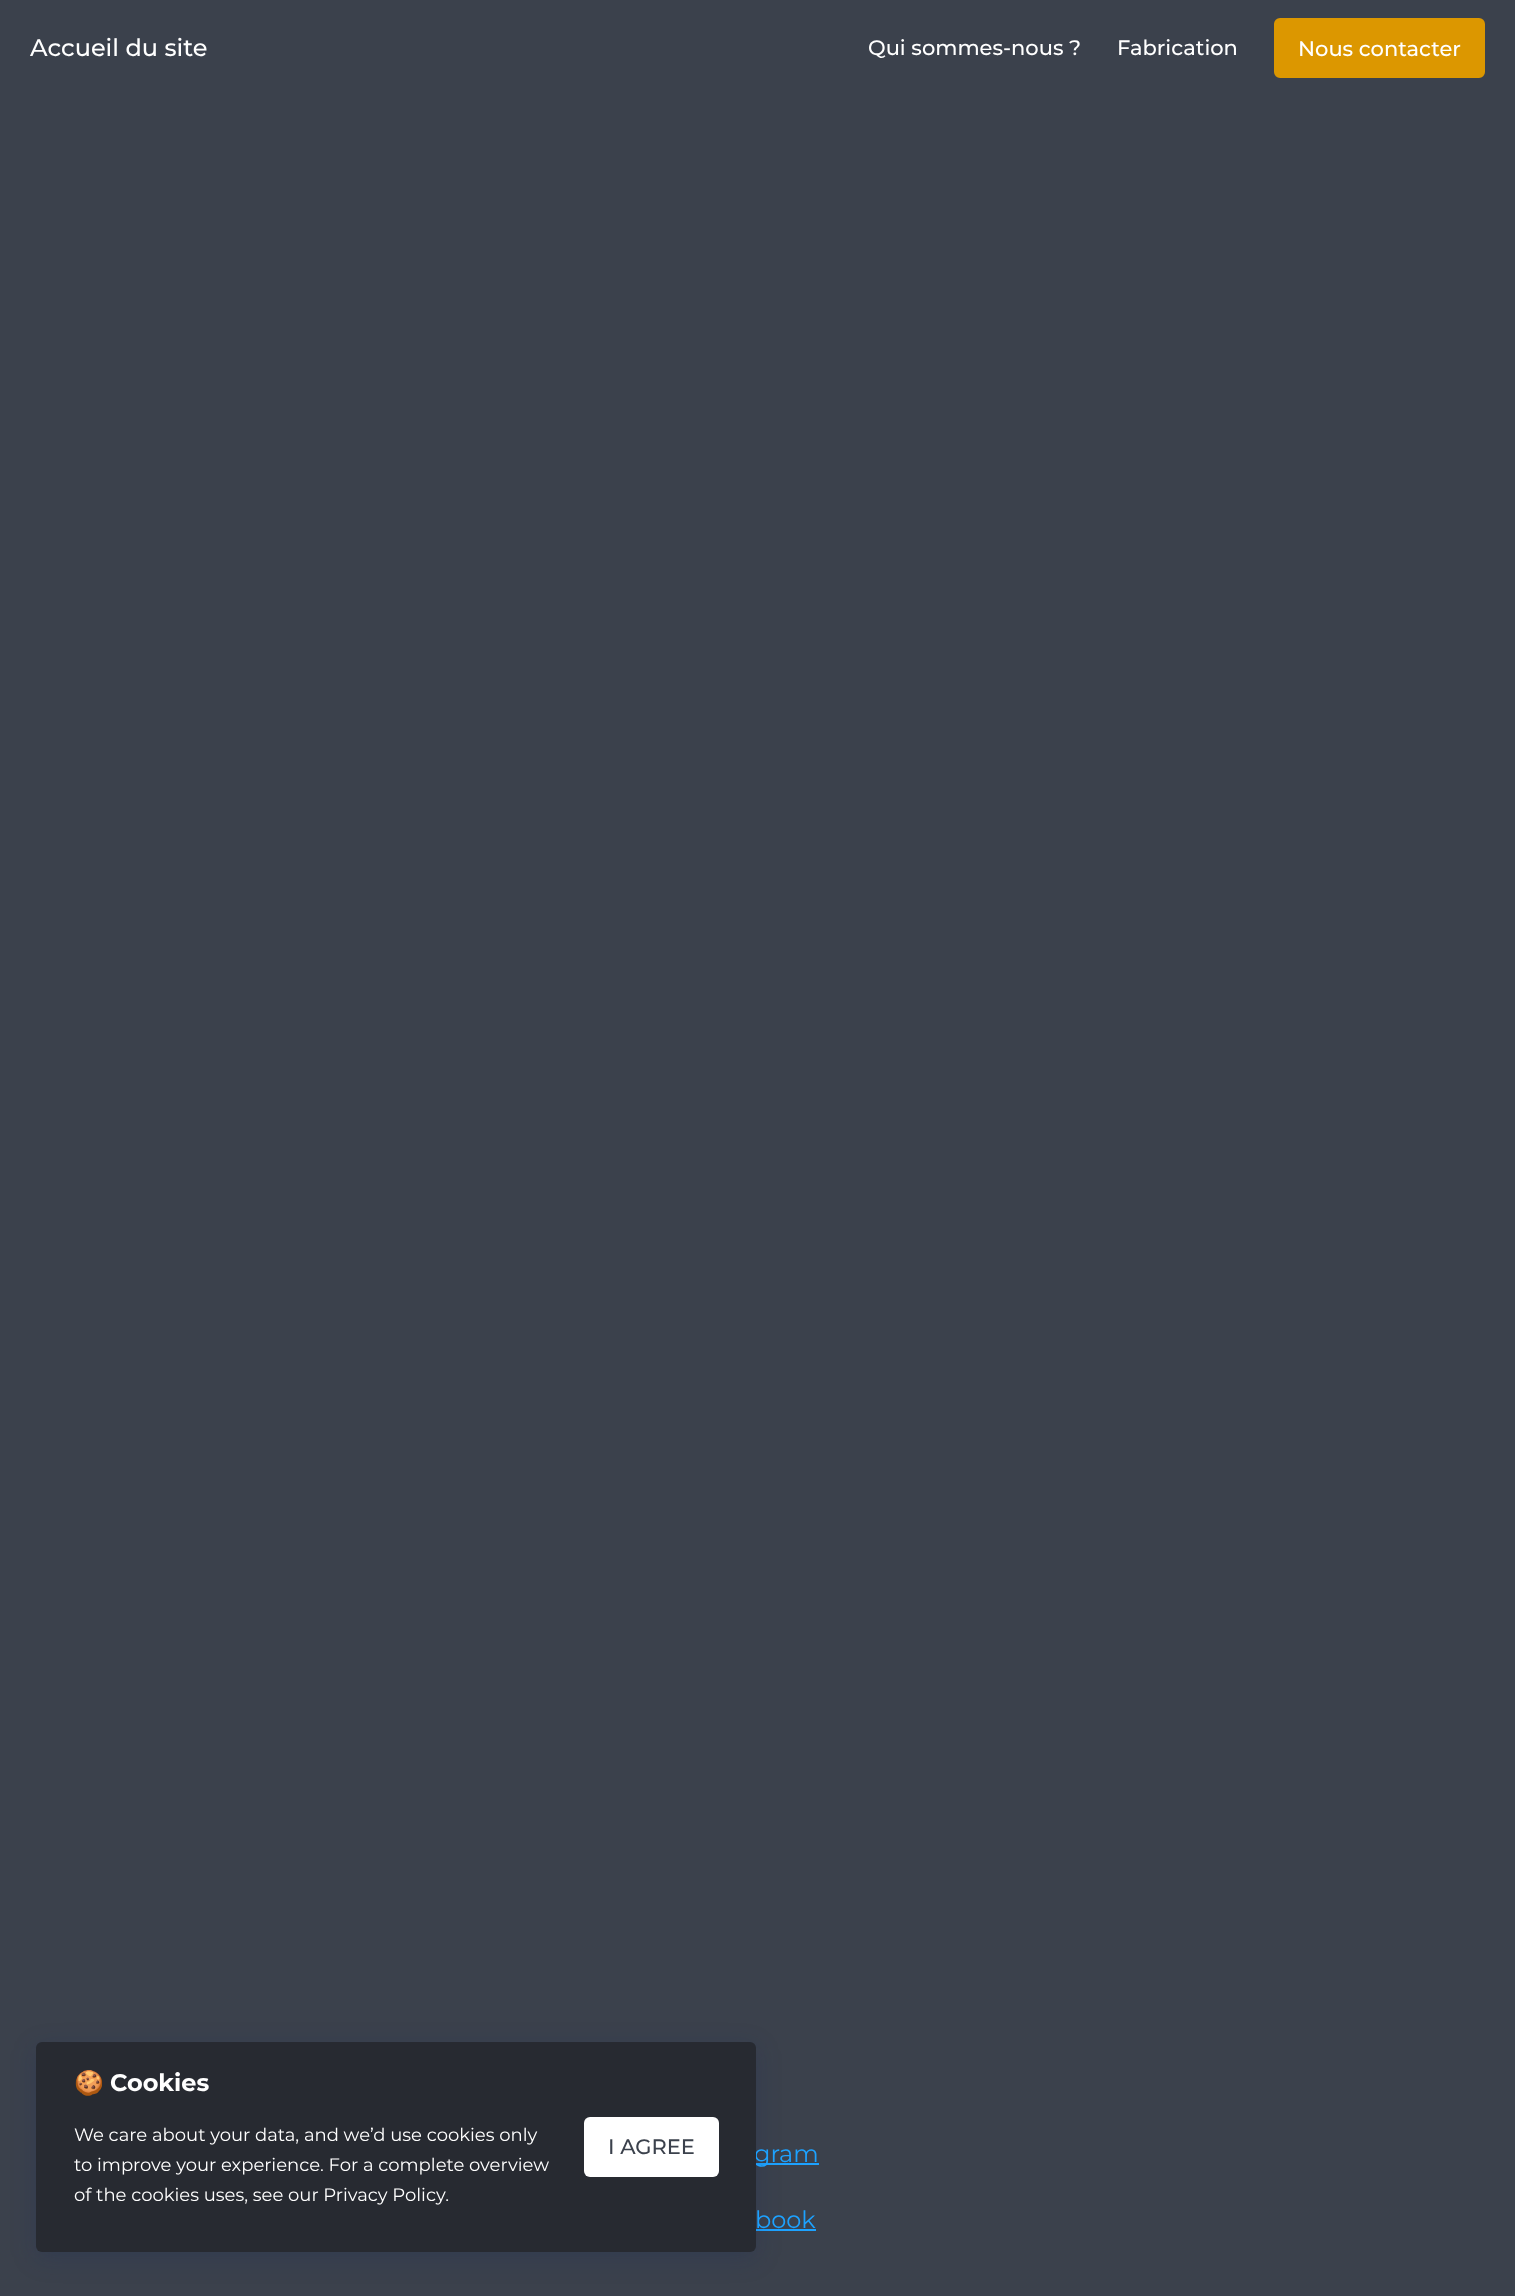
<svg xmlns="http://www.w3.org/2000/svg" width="1515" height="2296">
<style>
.a{font:500 24px Montserrat;fill:#fff}
.b{font:500 21px Montserrat;fill:#fff}
.c{font:24px Montserrat;fill:#1da2ff}
.d{font:500 21px Montserrat;fill:#3b414c}
.e{font:18px Montserrat;fill:#fff}
.f{font:bold 24px Montserrat;fill:#fff}
.g{font:bold 24px Noto Color Emoji;fill:#fff}
</style>
<rect width="100%" height="100%" fill="#3b414c"/>
<rect fill="#dc9700" stroke="#dc9700" stroke-width="2" x="1275" y="19" width="209" height="58" rx="5"/>
<path fill="#1da2ff" d="M756 2163h63v2H756z"/>
<path fill="#1da2ff" d="M756 2229h60v2H756z"/>
<rect fill="#0a235e33" filter="blur(12px)" x="36" y="2048" width="720" height="210" rx="6"/>
<text class="a" x="30" y="56">Accueil du site</text>
<text class="b" x="868" y="55">Qui sommes-nous ?</text>
<text class="b" x="1117" y="55">Fabrication</text>
<text class="b" x="1298" y="56">Nous contacter</text>
<text class="c" x="754" y="2162">gram</text>
<rect fill="#272a31" x="36" y="2042" width="720" height="210" rx="6"/>
<rect fill="#fff" x="584" y="2117" width="135" height="60" rx="6"/>
<text class="d" x="608" y="2154">I AGREE</text>
<text class="e" x="74" y="2201">of the cookies uses, see our Privacy Policy.</text>
<text class="e" x="74" y="2171">to improve your experience. For a complete overview</text>
<text class="e" x="74" y="2141">We care about your data, and we’d use cookies only</text>
<text class="f" x="110" y="2091">Cookies</text>
<text class="g" x="74" y="2091">🍪</text>
<text class="c" x="755" y="2228">book</text>
</svg>
